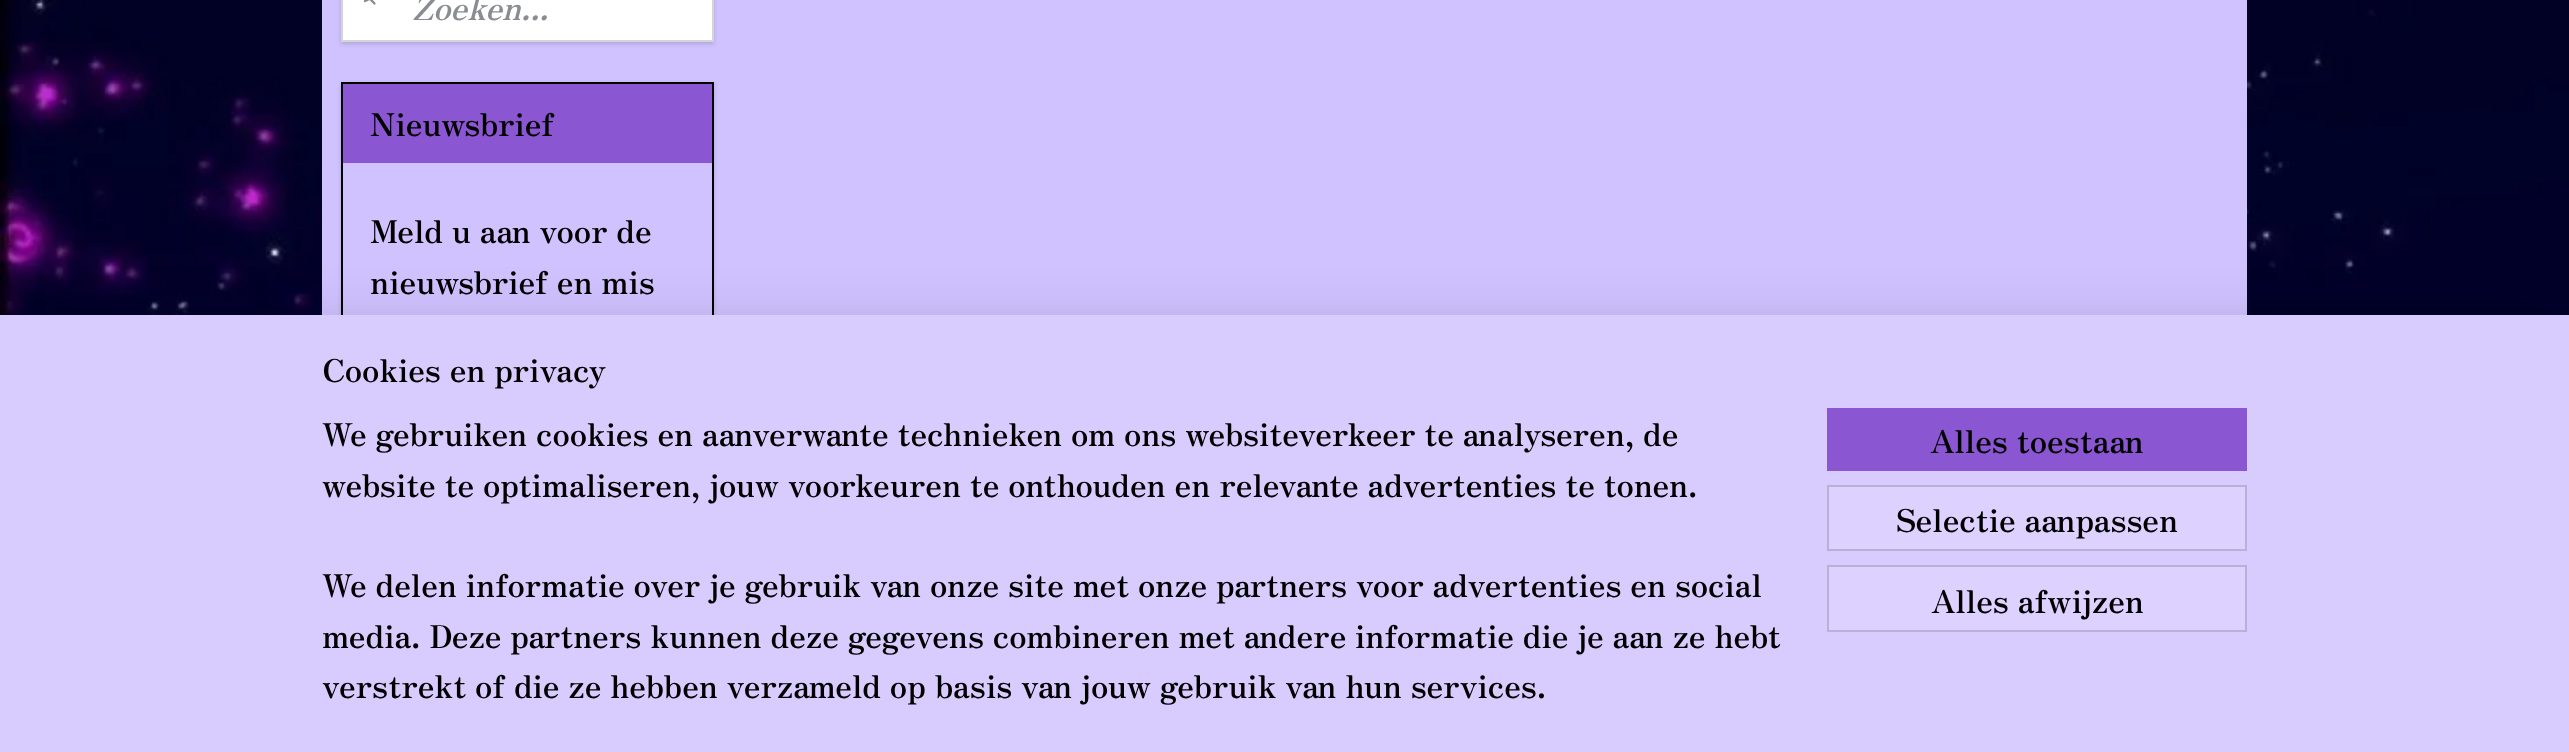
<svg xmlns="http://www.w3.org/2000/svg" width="2569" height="752">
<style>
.a{font:italic 31.5px Zen Antique;fill:#898c91}
.b{font:31.5px Zen Antique;fill:#000}
</style>
<rect width="100%" height="100%" fill="#fff"/>
<image href="1.png" x="0" y="0" width="2569" height="315"/>
<path fill="#d0c2ff" d="M322 0h1925v315H322z"/>
<path fill="#00000026" filter="blur(2px)" d="M341 -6h373v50H341z"/>
<path fill="#fff" stroke="#d3d5d9" stroke-width="2" d="M342 -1h371v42H342z"/>
<image href="2.png" x="364" y="0" width="12" height="5"/>
<path fill="#00000026" filter="blur(2px)" d="M341 84h373v516H341z"/>
<path fill="#d0c2ff" d="M343 163h369v152H343z"/>
<path fill="none" stroke="#000" stroke-width="2" d="M342 83h371v515H342z"/>
<path fill="#8b56d1" d="M343 84h369v79H343z"/>
<path fill="#00000033" filter="blur(31.5px)" d="M18 333h2534v402H18z"/>
<path fill="#d8ccff" d="M0 315h2569v437H0z"/>
<path fill="#8b56d1" d="M1827 408h420v63H1827z"/>
<path fill="#dcd1ff" stroke="#b9b0d6" stroke-width="2" d="M1828 486h418v64H1828z"/>
<path fill="#dcd1ff" stroke="#b9b0d6" stroke-width="2" d="M1828 566h418v65H1828z"/>
<text class="a" x="412" y="20">Zoeken...</text>
<text class="b" x="370" y="136">Nieuwsbrief</text>
<text class="b" x="370" y="243">Meld u aan voor de</text>
<text class="b" x="370" y="294">nieuwsbrief en mis</text>
<text class="b" x="322" y="382">Cookies en privacy</text>
<text class="b" x="322" y="446">We gebruiken cookies en aanverwante technieken om ons websiteverkeer te analyseren, de</text>
<text class="b" x="322" y="497">website te optimaliseren, jouw voorkeuren te onthouden en relevante advertenties te tonen.</text>
<text class="b" x="322" y="597">We delen informatie over je gebruik van onze site met onze partners voor advertenties en social</text>
<text class="b" x="322" y="648">media. Deze partners kunnen deze gegevens combineren met andere informatie die je aan ze hebt</text>
<text class="b" x="322" y="698">verstrekt of die ze hebben verzameld op basis van jouw gebruik van hun services.</text>
<text class="b" x="1930" y="453">Alles toestaan</text>
<text class="b" x="1896" y="532">Selectie aanpassen</text>
<text class="b" x="1931" y="613">Alles afwijzen</text>
</svg>
